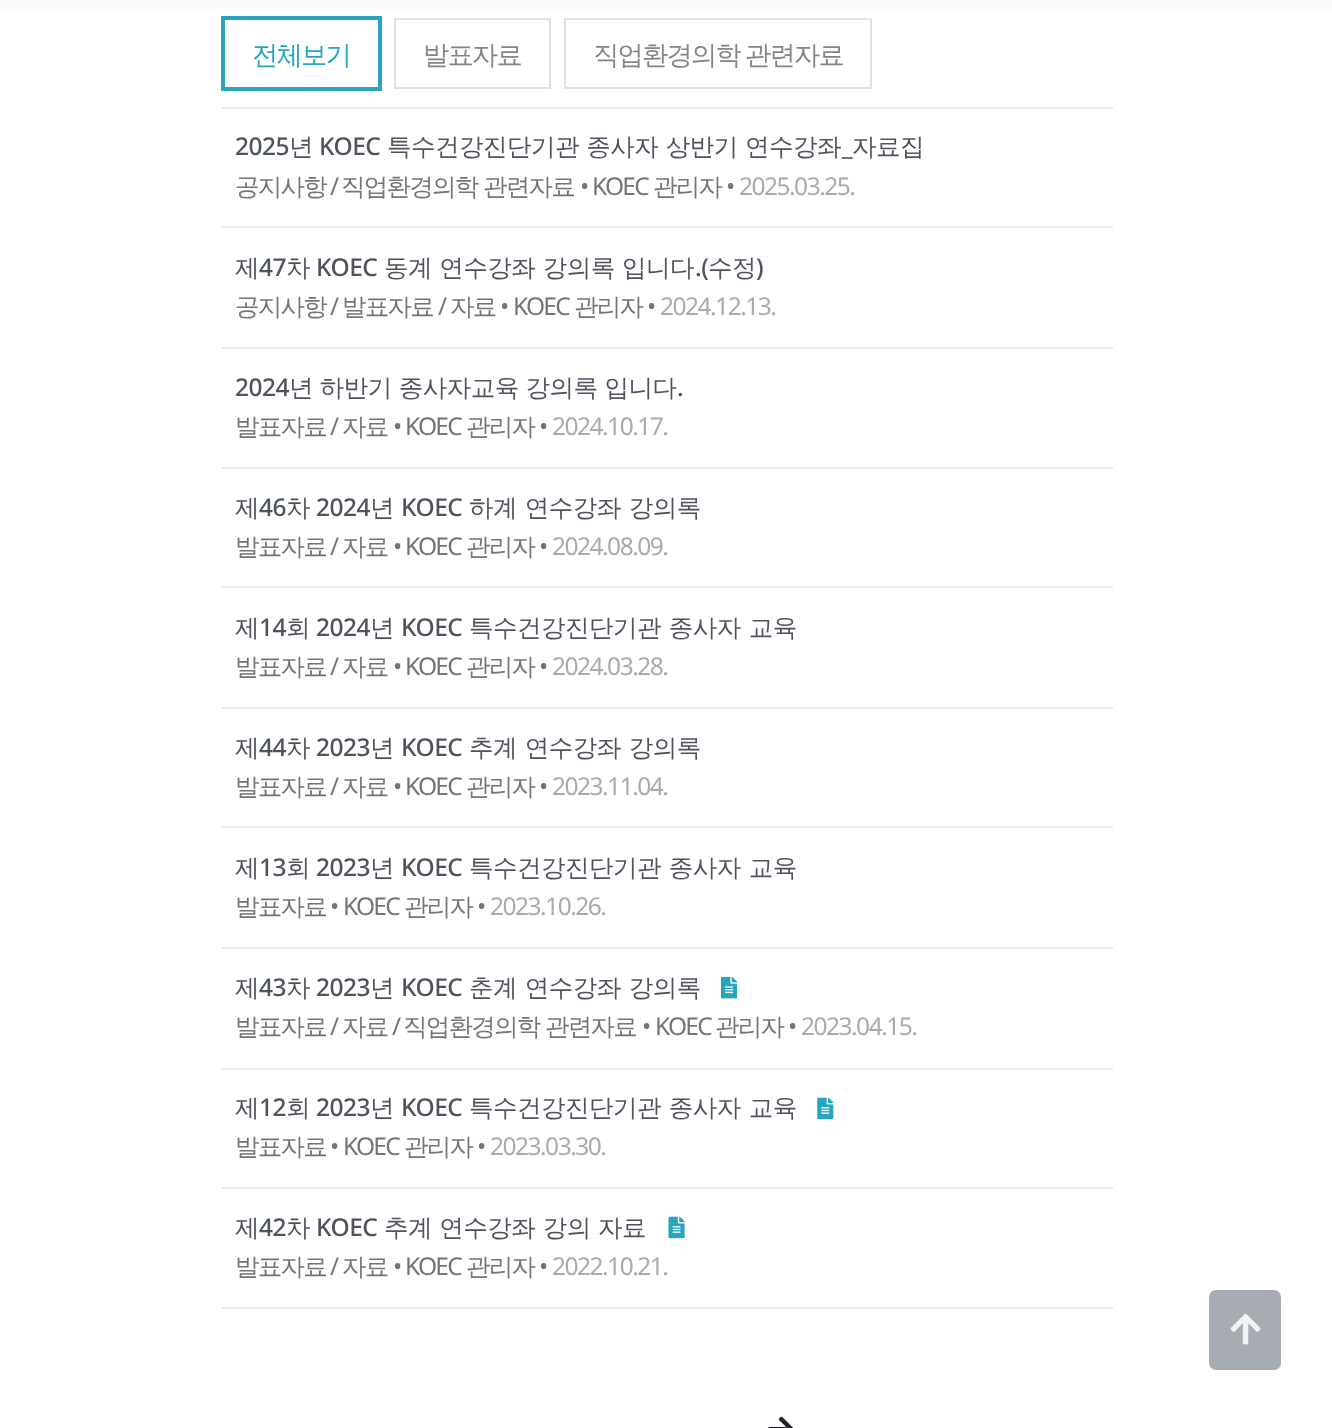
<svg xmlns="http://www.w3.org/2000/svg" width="1332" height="1428">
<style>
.a{font:500 26.25px WenQuanYi Zen Hei;letter-spacing:-1.75px;fill:#28a5be}
.b{font:500 26.25px WenQuanYi Zen Hei;letter-spacing:-1.75px;fill:#858585}
.c{font:500 24.5px Noto Sans;letter-spacing:-0.5px;fill:#4d545d}
.d{font:500 24.5px WenQuanYi Zen Hei;letter-spacing:-0.5px;fill:#4d545d}
.e{font:500 24.5px WenQuanYi Zen Hei;letter-spacing:-1.75px;fill:#757575}
.f{font:24.5px Noto Sans;letter-spacing:-1.75px;fill:#757575}
.g{font:24.5px Noto Sans;letter-spacing:-1.5px;fill:#aaa}
</style>
<rect width="100%" height="100%" fill="#fff"/>
<path fill="#f8f9fa" d="M0 0h1332v9H0z"/>
<path fill="none" stroke="#28a5be" stroke-width="4" d="M223 18h157v71H223z"/>
<path fill="none" stroke="#dee2e6" stroke-width="2" d="M395 19h155v69H395z"/>
<path fill="none" stroke="#dee2e6" stroke-width="2" d="M565 19h306v69H565z"/>
<path fill="#eaeaea" d="M221 107h892v2H221z"/>
<path fill="#eaeaea" d="M221 226h892v2H221z"/>
<path fill="#eaeaea" d="M221 347h892v2H221z"/>
<path fill="#eaeaea" d="M221 467h892v2H221z"/>
<path fill="#eaeaea" d="M221 586h892v2H221z"/>
<path fill="#eaeaea" d="M221 707h892v2H221z"/>
<path fill="#eaeaea" d="M221 826h892v2H221z"/>
<path fill="#eaeaea" d="M221 947h892v2H221z"/>
<image href="1.png" x="721" y="977" width="17" height="22"/>
<path fill="#eaeaea" d="M221 1068h892v2H221z"/>
<image href="2.png" x="817" y="1097" width="17" height="23"/>
<path fill="#eaeaea" d="M221 1187h892v2H221z"/>
<path fill="#eaeaea" d="M221 1307h892v2H221z"/>
<image href="3.png" x="668" y="1216" width="17" height="23"/>
<image href="4.png" x="768" y="1416" width="26" height="12"/>
<rect fill="#a7acb3" x="1209" y="1290" width="72" height="80" rx="7"/>
<image href="5.png" x="1230" y="1313" width="31" height="32"/>
<text class="a" x="252" y="64">전체보기</text>
<text class="b" x="423" y="64">발표자료</text>
<text class="b" x="593" y="64" word-spacing="-1">직업환경의학 관련자료</text>
<text class="c" x="235" y="155">2025</text>
<text class="d" x="289" y="155">년</text>
<text class="c" x="319" y="155">KOEC</text>
<text class="d" x="387" y="155" word-spacing="0.5">특수건강진단기관 종사자 상반기 연수강좌</text>
<text class="d" x="852" y="155">자료집</text>
<text class="c" x="842" y="155">_</text>
<text class="e" x="235" y="195">공지사항</text>
<text class="f" x="330" y="195">/</text>
<text class="e" x="341" y="195">직업환경의학 관련자료</text>
<text class="f" x="580" y="195">•</text>
<text class="f" x="592" y="195">KOEC</text>
<text class="e" x="653" y="195">관리자</text>
<text class="f" x="726" y="195">•</text>
<text class="g" x="739" y="195">2025.03.25.</text>
<text class="d" x="235" y="276">제</text>
<text class="c" x="259" y="276">47</text>
<text class="d" x="286" y="276">차</text>
<text class="c" x="316" y="276">KOEC</text>
<text class="d" x="384" y="276" word-spacing="0.5">동계 연수강좌 강의록 입니다</text>
<text class="c" x="695" y="276">.(</text>
<text class="d" x="708" y="276">수정</text>
<text class="c" x="756" y="276">)</text>
<text class="e" x="235" y="315">공지사항</text>
<text class="f" x="330" y="315">/</text>
<text class="e" x="342" y="315">발표자료</text>
<text class="f" x="438" y="315">/</text>
<text class="e" x="450" y="315">자료</text>
<text class="f" x="500" y="315">•</text>
<text class="f" x="513" y="315">KOEC</text>
<text class="e" x="574" y="315">관리자</text>
<text class="f" x="647" y="315">•</text>
<text class="g" x="660" y="315">2024.12.13.</text>
<text class="c" x="235" y="396">2024</text>
<text class="d" x="289" y="396">년 하반기 종사자교육 강의록 입니다</text>
<text class="c" x="677" y="396">.</text>
<text class="e" x="235" y="435">발표자료</text>
<text class="f" x="330" y="435">/</text>
<text class="e" x="342" y="435">자료</text>
<text class="f" x="393" y="435">•</text>
<text class="f" x="405" y="435">KOEC</text>
<text class="e" x="466" y="435">관리자</text>
<text class="f" x="539" y="435">•</text>
<text class="g" x="552" y="435">2024.10.17.</text>
<text class="d" x="235" y="516">제</text>
<text class="c" x="259" y="516">46</text>
<text class="d" x="286" y="516">차</text>
<text class="c" x="316" y="516">2024</text>
<text class="d" x="370" y="516">년</text>
<text class="c" x="401" y="516">KOEC</text>
<text class="d" x="469" y="516" word-spacing="1">하계 연수강좌 강의록</text>
<text class="e" x="235" y="555">발표자료</text>
<text class="f" x="330" y="555">/</text>
<text class="e" x="342" y="555">자료</text>
<text class="f" x="393" y="555">•</text>
<text class="f" x="405" y="555">KOEC</text>
<text class="e" x="466" y="555">관리자</text>
<text class="f" x="539" y="555">•</text>
<text class="g" x="552" y="555">2024.08.09.</text>
<text class="d" x="235" y="636">제</text>
<text class="c" x="259" y="636">14</text>
<text class="d" x="286" y="636">회</text>
<text class="c" x="316" y="636">2024</text>
<text class="d" x="370" y="636">년</text>
<text class="c" x="401" y="636">KOEC</text>
<text class="d" x="469" y="636" word-spacing="1">특수건강진단기관 종사자 교육</text>
<text class="e" x="235" y="675">발표자료</text>
<text class="f" x="330" y="675">/</text>
<text class="e" x="342" y="675">자료</text>
<text class="f" x="393" y="675">•</text>
<text class="f" x="405" y="675">KOEC</text>
<text class="e" x="466" y="675">관리자</text>
<text class="f" x="539" y="675">•</text>
<text class="g" x="552" y="675">2024.03.28.</text>
<text class="d" x="235" y="756">제</text>
<text class="c" x="259" y="756">44</text>
<text class="d" x="286" y="756">차</text>
<text class="c" x="316" y="756">2023</text>
<text class="d" x="370" y="756">년</text>
<text class="c" x="401" y="756">KOEC</text>
<text class="d" x="469" y="756" word-spacing="1">추계 연수강좌 강의록</text>
<text class="e" x="235" y="795">발표자료</text>
<text class="f" x="330" y="795">/</text>
<text class="e" x="342" y="795">자료</text>
<text class="f" x="393" y="795">•</text>
<text class="f" x="405" y="795">KOEC</text>
<text class="e" x="466" y="795">관리자</text>
<text class="f" x="539" y="795">•</text>
<text class="g" x="552" y="795">2023.11.04.</text>
<text class="d" x="235" y="876">제</text>
<text class="c" x="259" y="876">13</text>
<text class="d" x="286" y="876">회</text>
<text class="c" x="316" y="876">2023</text>
<text class="d" x="370" y="876">년</text>
<text class="c" x="401" y="876">KOEC</text>
<text class="d" x="469" y="876" word-spacing="1">특수건강진단기관 종사자 교육</text>
<text class="e" x="235" y="915">발표자료</text>
<text class="f" x="330" y="915">•</text>
<text class="f" x="343" y="915">KOEC</text>
<text class="e" x="404" y="915">관리자</text>
<text class="f" x="477" y="915">•</text>
<text class="g" x="490" y="915">2023.10.26.</text>
<text class="d" x="235" y="996">제</text>
<text class="c" x="259" y="996">43</text>
<text class="d" x="286" y="996">차</text>
<text class="c" x="316" y="996">2023</text>
<text class="d" x="370" y="996">년</text>
<text class="c" x="401" y="996">KOEC</text>
<text class="d" x="469" y="996" word-spacing="1">춘계 연수강좌 강의록</text>
<text class="e" x="235" y="1035">발표자료</text>
<text class="f" x="330" y="1035">/</text>
<text class="e" x="342" y="1035">자료</text>
<text class="f" x="392" y="1035">/</text>
<text class="e" x="403" y="1035">직업환경의학 관련자료</text>
<text class="f" x="642" y="1035">•</text>
<text class="f" x="655" y="1035">KOEC</text>
<text class="e" x="715" y="1035">관리자</text>
<text class="f" x="788" y="1035">•</text>
<text class="g" x="801" y="1035">2023.04.15.</text>
<text class="d" x="235" y="1116">제</text>
<text class="c" x="259" y="1116">12</text>
<text class="d" x="286" y="1116">회</text>
<text class="c" x="316" y="1116">2023</text>
<text class="d" x="370" y="1116">년</text>
<text class="c" x="401" y="1116">KOEC</text>
<text class="d" x="469" y="1116" word-spacing="1">특수건강진단기관 종사자 교육</text>
<text class="e" x="235" y="1155">발표자료</text>
<text class="f" x="330" y="1155">•</text>
<text class="f" x="343" y="1155">KOEC</text>
<text class="e" x="404" y="1155">관리자</text>
<text class="f" x="477" y="1155">•</text>
<text class="g" x="490" y="1155">2023.03.30.</text>
<text class="d" x="235" y="1236">제</text>
<text class="c" x="259" y="1236">42</text>
<text class="d" x="286" y="1236">차</text>
<text class="c" x="316" y="1236">KOEC</text>
<text class="d" x="384" y="1236" word-spacing="0.5">추계 연수강좌 강의 자료</text>
<text class="e" x="235" y="1275">발표자료</text>
<text class="f" x="330" y="1275">/</text>
<text class="e" x="342" y="1275">자료</text>
<text class="f" x="393" y="1275">•</text>
<text class="f" x="405" y="1275">KOEC</text>
<text class="e" x="466" y="1275">관리자</text>
<text class="f" x="539" y="1275">•</text>
<text class="g" x="552" y="1275">2022.10.21.</text>
</svg>
